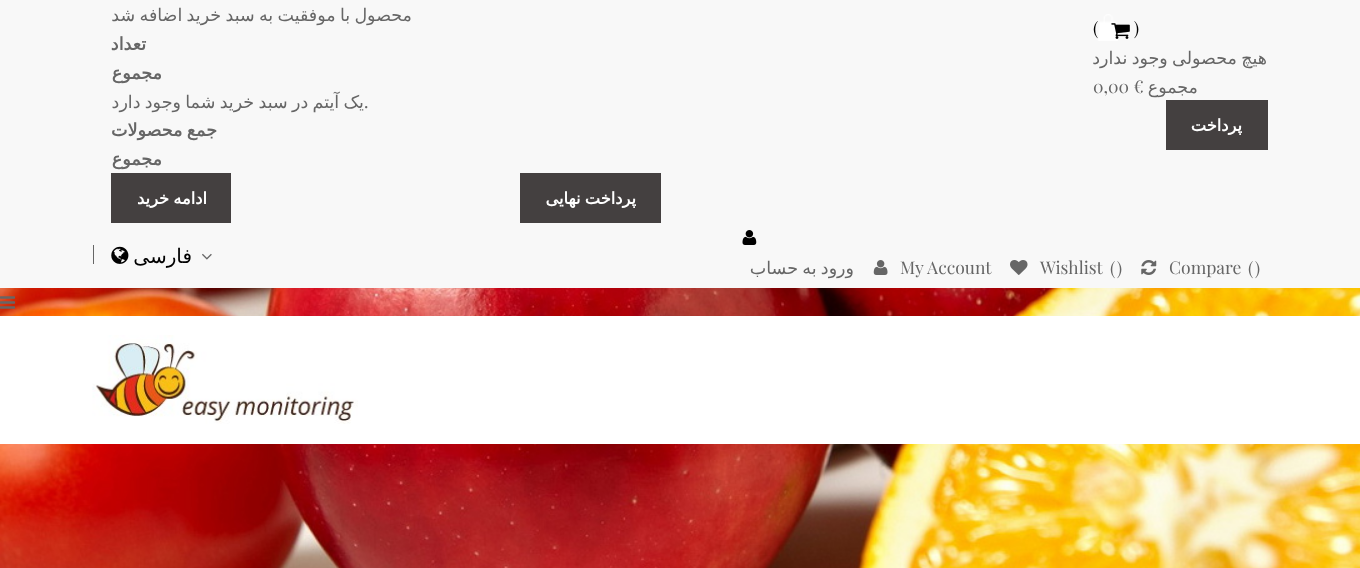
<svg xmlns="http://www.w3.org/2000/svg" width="1360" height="568">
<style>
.a{font:17.5px Playfair Display;fill:#000}
.b{font:17.5px DejaVu Sans;direction:rtl;fill:#666}
.c{font:17.5px Playfair Display;fill:#666}
.d{font:bold 16.25px DejaVu Sans;direction:rtl;fill:#fff}
.e{font:bold 17.5px DejaVu Sans;direction:rtl;fill:#666}
.f{font:20px DejaVu Sans;direction:rtl;fill:#000}
</style>
<rect width="100%" height="100%" fill="#fff"/>
<image href="1.png" x="0" y="288" width="1360" height="280"/>
<path fill="#f8f8f8" d="M0 0h1360v288H0z"/>
<path fill="#444040" d="M1166 100h102v50H1166z"/>
<path fill="#444040" d="M520 173h141v50H520z"/>
<path fill="#444040" d="M111 173h120v50H111z"/>
<image href="4.png" x="742" y="230" width="15" height="15"/>
<image href="5.png" x="1141" y="260" width="16" height="15"/>
<image href="6.png" x="1010" y="260" width="18" height="15"/>
<image href="7.png" x="873" y="260" width="15" height="15"/>
<image href="8.png" x="202" y="253" width="10" height="7"/>
<image href="9.png" x="111" y="246" width="18" height="18"/>
<path fill="#666" d="M93 245h1v19H93z"/>
<image href="10.png" x="0" y="296" width="15" height="13"/>
<path fill="#fff" d="M0 316h1360v128H0z"/>
<image href="11.png" x="92" y="335" width="266" height="89"/>
<text class="a" x="1134" y="35">)</text>
<text class="a" x="1093" y="35">(</text>
<image href="2.png" x="1097" y="14" width="21" height="27"/>
<image href="3.png" x="1111" y="23" width="19" height="16"/>
<text class="b" x="1267" y="64" word-spacing="-1.25">هیچ محصولی وجود ندارد</text>
<text class="b" x="1198" y="93">مجموع</text>
<text class="c" x="1093" y="93">0,00 €</text>
<text class="d" x="1242" y="131">پرداخت</text>
<text class="b" x="412" y="21" word-spacing="-1.25">محصول با موفقیت به سبد خرید اضافه شد</text>
<text class="e" x="146" y="50">تعداد</text>
<text class="e" x="162" y="79">مجموع</text>
<text class="c" x="364" y="108">.</text>
<text class="b" x="364" y="108" word-spacing="-1.25">یک آیتم در سبد خرید شما وجود دارد</text>
<text class="e" x="217" y="136" word-spacing="-1.25">جمع محصولات</text>
<text class="e" x="162" y="165">مجموع</text>
<text class="d" x="636" y="204" word-spacing="-1">پرداخت نهایی</text>
<text class="d" x="207" y="204" word-spacing="-1">ادامه خرید</text>
<text class="c" x="1255" y="275">)</text>
<text class="c" x="1248" y="275">(</text>
<text class="c" x="1169" y="274">Compare</text>
<text class="c" x="1117" y="275">)</text>
<text class="c" x="1110" y="275">(</text>
<text class="c" x="1040" y="274">Wishlist</text>
<text class="c" x="900" y="274">My Account</text>
<text class="b" x="854" y="274" word-spacing="-1.25">ورود به حساب</text>
<text class="f" x="192" y="263">فارسى</text>
</svg>
